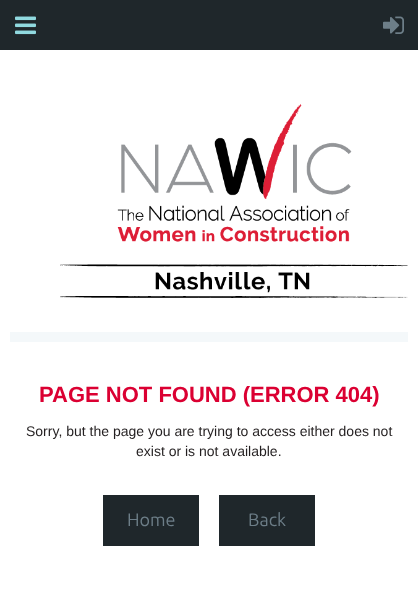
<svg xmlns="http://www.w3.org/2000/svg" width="418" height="610">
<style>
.a{font:bold 22px Liberation Sans;fill:#db0032}
.b{font:14px Liberation Sans;fill:#231f20}
.c{font:18px Ubuntu;fill:#6d7e88}
</style>
<rect width="100%" height="100%" fill="#fff"/>
<path fill="#1f272b" d="M0 0h418v50H0z"/>
<image href="1.png" x="15" y="16" width="21" height="19"/>
<image href="2.png" x="383" y="16" width="21" height="18"/>
<image href="3.png" x="60" y="104" width="348" height="194"/>
<path fill="#f4f8fa" d="M10 332h398v10H10z"/>
<path fill="#1f272b" d="M103 495h96v51H103z"/>
<path fill="#1f272b" d="M219 495h96v51H219z"/>
<text class="a" x="39" y="402">PAGE NOT FOUND (ERROR 404)</text>
<text class="b" x="26" y="436">Sorry, but the page you are trying to access either does not</text>
<text class="b" x="136" y="456">exist or is not available.</text>
<text class="c" x="127" y="526">Home</text>
<text class="c" x="248" y="526">Back</text>
</svg>
